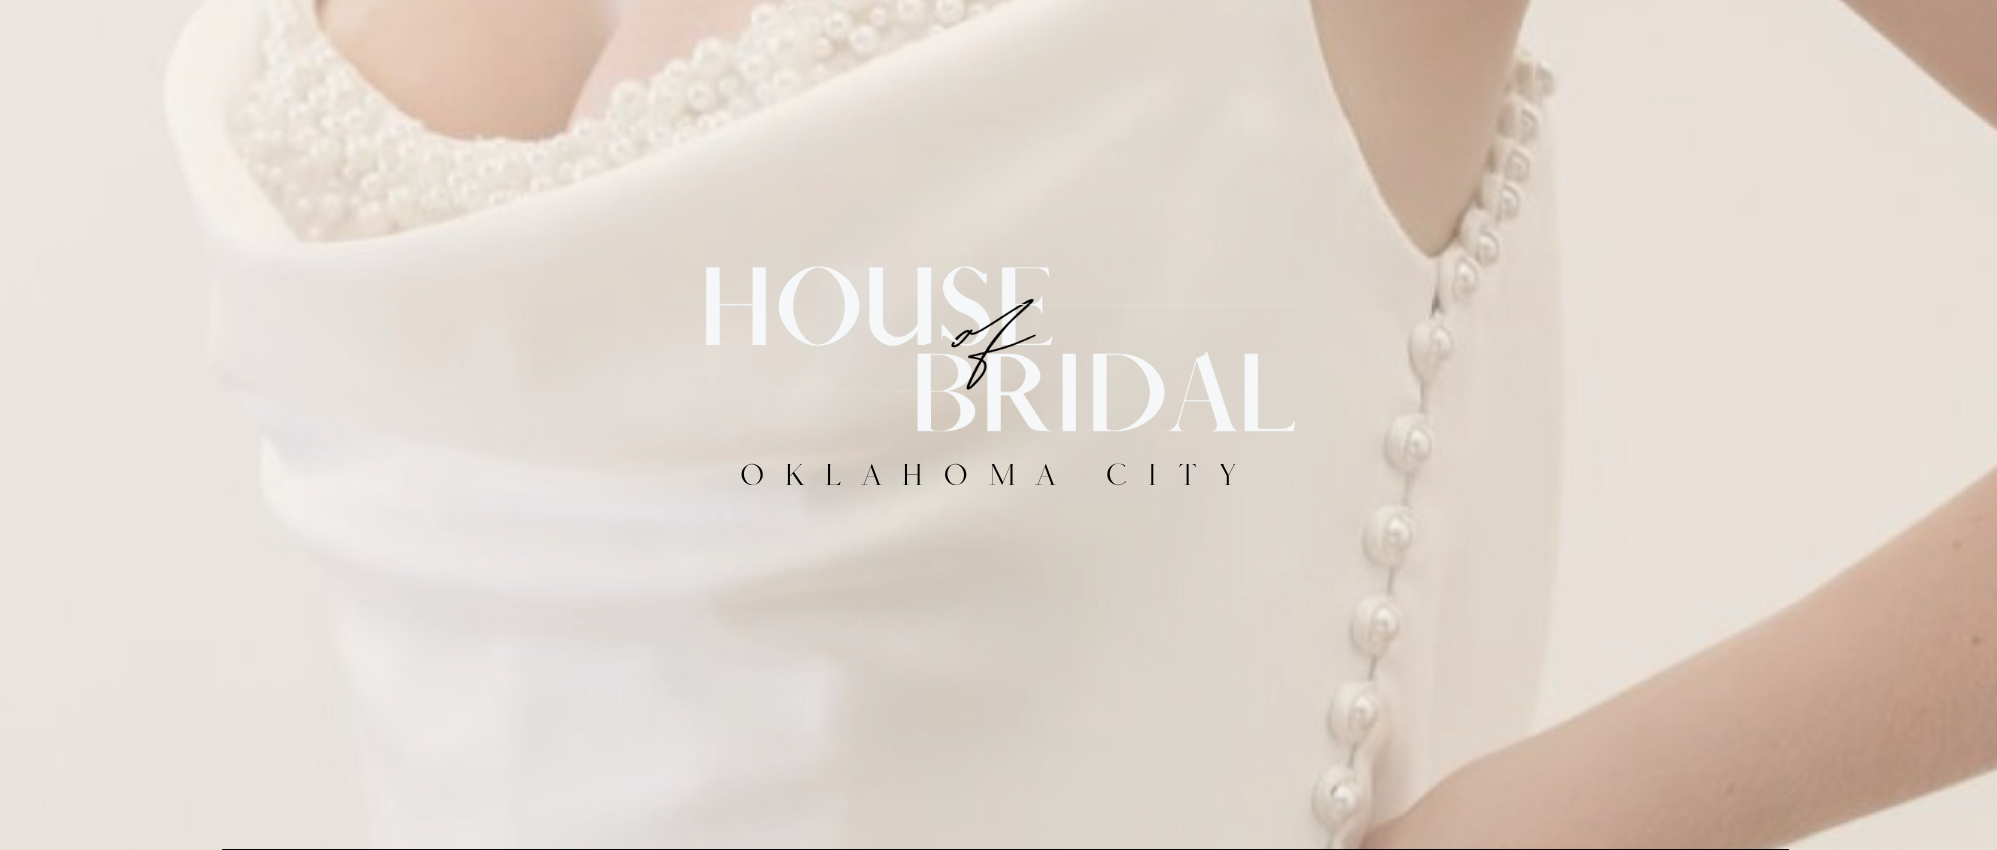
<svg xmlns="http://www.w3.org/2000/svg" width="1997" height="850">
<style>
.a{font:43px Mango;letter-spacing:21.5px;fill:#000}
</style>
<rect width="100%" height="100%" fill="#ede0d1"/>
<image href="1.png" x="0" y="0" width="1997" height="850"/>
<image href="2.png" x="703" y="266" width="593" height="166"/>
<path fill="#000" d="M222 849h1567v1H222z"/>
<text class="a" x="740" y="485">OKLAHOMA CITY</text>
</svg>
